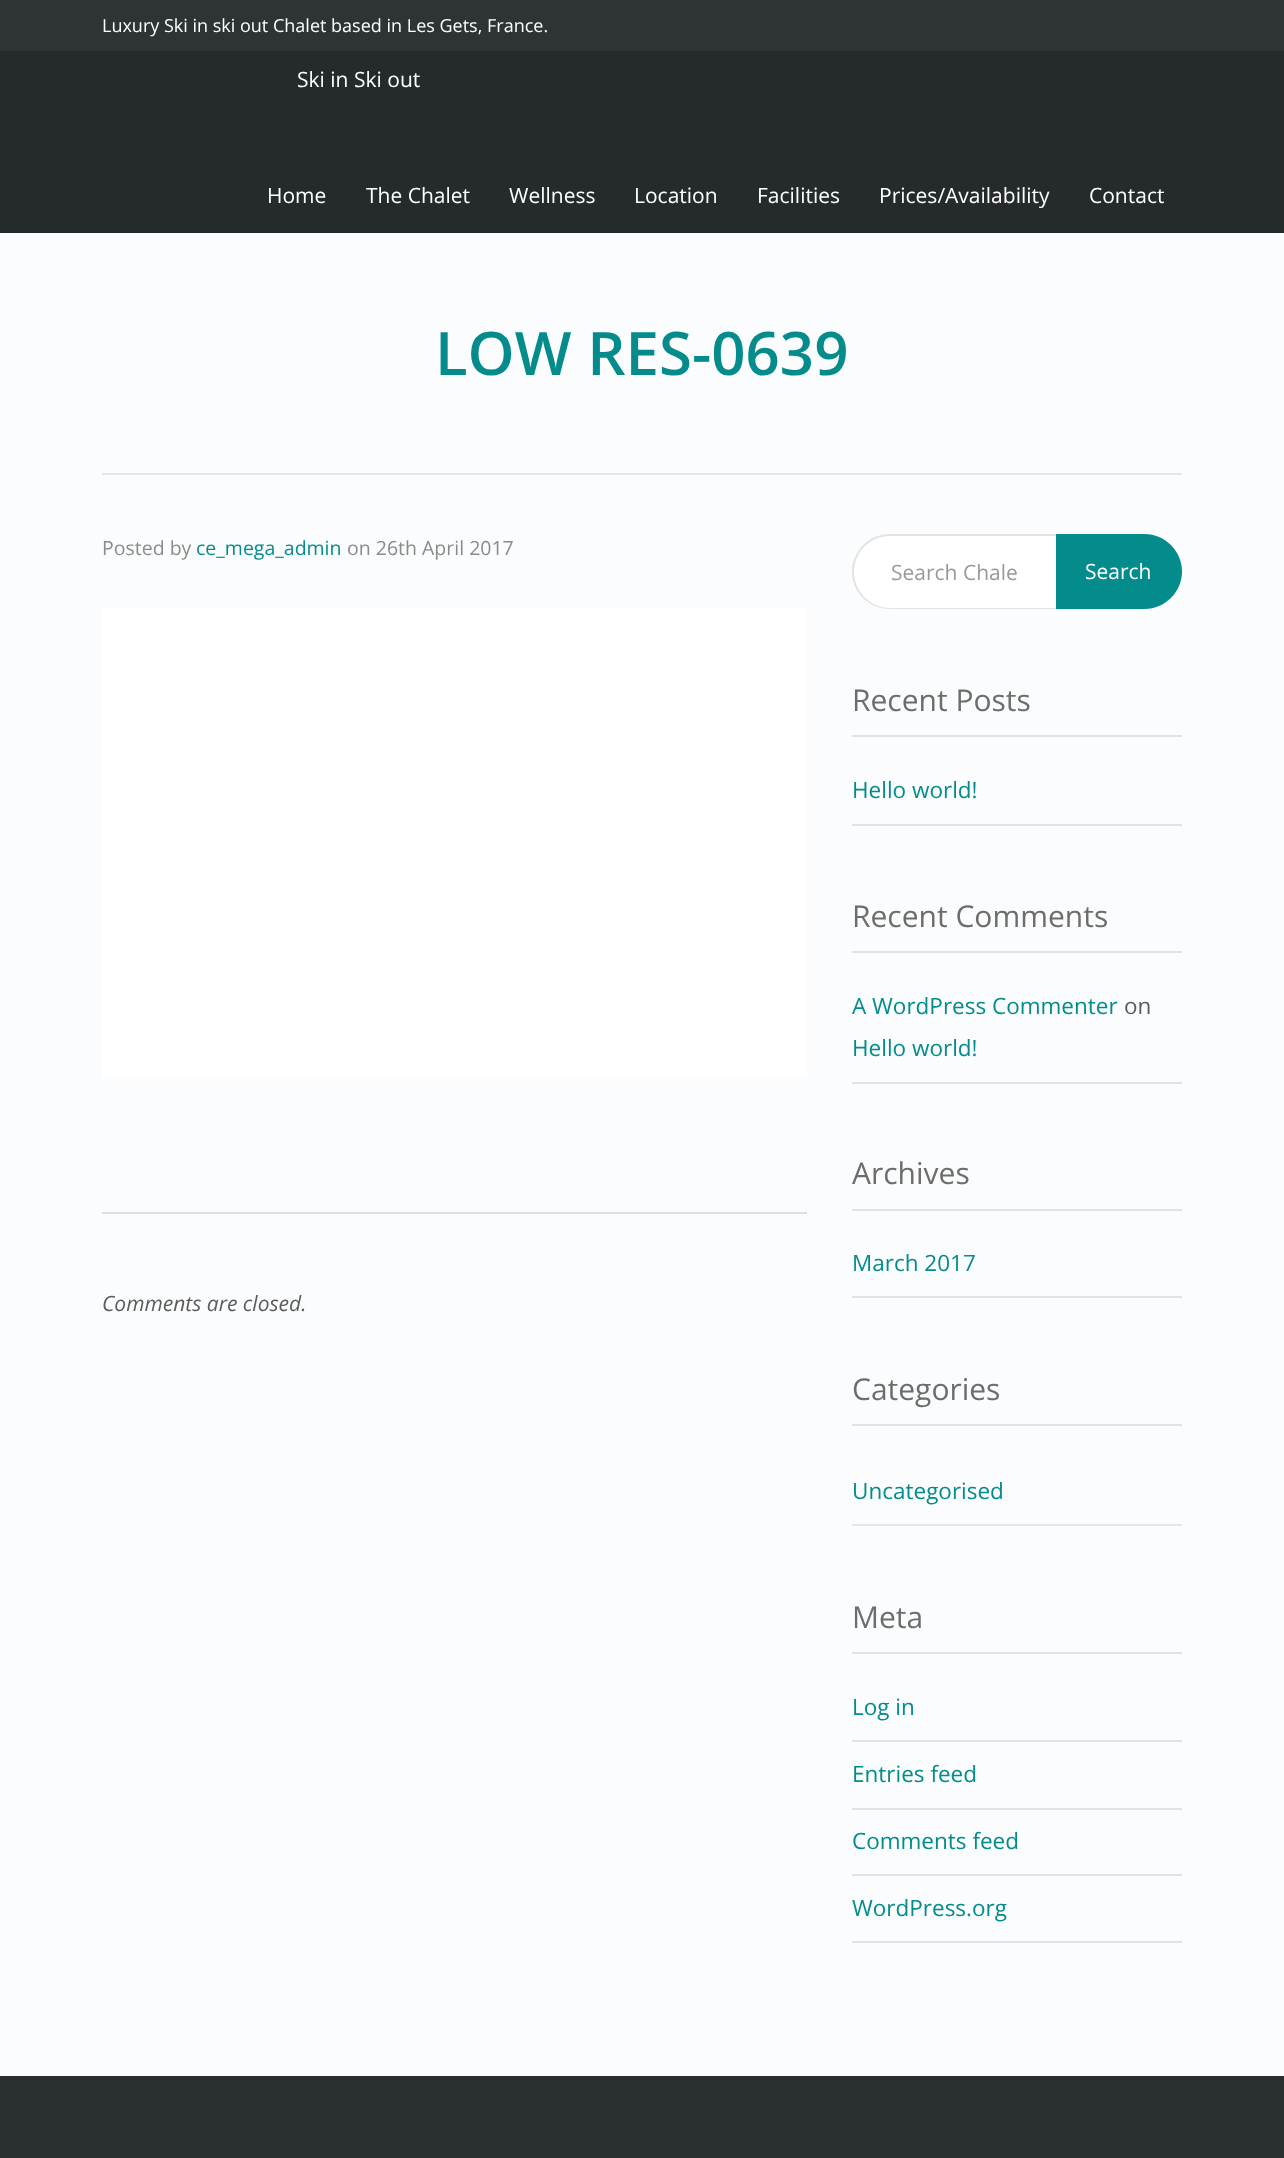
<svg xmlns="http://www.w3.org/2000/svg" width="1284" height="2158">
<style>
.a{font:18px Open Sans;fill:#fff}
.b{font:21px Open Sans;fill:#fff}
.c{font:600 60px Open Sans;fill:#048c8c}
.d{font:19.5px Open Sans;fill:#8b8b8b}
.e{font:19.5px Open Sans;fill:#048c8c}
.f{font:italic 21px Open Sans;fill:#5c5c5c}
.g{font:21px Open Sans;fill:#999}
.h{font:30px Open Sans;fill:#6d6d6d}
.i{font:22.5px Open Sans;fill:#048c8c}
.j{font:22.5px Open Sans;fill:#5c5c5c}
</style>
<rect width="100%" height="100%" fill="#fbfcfd"/>
<path fill="#252b2d" d="M0 51h1284v182H0z"/>
<path fill="#2e3335" d="M0 0h1284v51H0z"/>
<path fill="#e6e6e6" d="M102 473h1080v2H102z"/>
<path fill="#dedede" d="M102 1212h705v2H102z"/>
<path fill="#fff" d="M102 608h705v469H102z"/>
<path fill="#fff" d="M889.5 534h166.5v75h-166.5c-20.5 0-37.5-17-37.5-37.5c0-20.5 17-37.5 37.5-37.5z"/>
<path fill="#e2e2e2" fill-rule="evenodd" d="M890 534h166v75h-166c-21 0-38-17-38-37c0-21 17-38 38-38zm0 2h166v72h-166c-20 0-36-17-36-36c0-20 16-36 36-36z"/>
<path fill="#048c8c" d="M1056 534h88.5c20.5 0 37.5 17 37.5 37.5c0 20.5-17 37.5-37.5 37.5h-88.5z"/>
<path fill="#e2e2e2" d="M852 735h330v2H852z"/>
<path fill="#e2e2e2" d="M852 824h330v2H852z"/>
<path fill="#e2e2e2" d="M852 951h330v2H852z"/>
<path fill="#e2e2e2" d="M852 1082h330v2H852z"/>
<path fill="#e2e2e2" d="M852 1209h330v2H852z"/>
<path fill="#e2e2e2" d="M852 1296h330v2H852z"/>
<path fill="#e2e2e2" d="M852 1424h330v2H852z"/>
<path fill="#e6e6e6" d="M852 1524h330v2H852z"/>
<path fill="#e2e2e2" d="M852 1652h330v2H852z"/>
<path fill="#e2e2e2" d="M852 1740h330v2H852z"/>
<path fill="#e2e2e2" d="M852 1808h330v2H852z"/>
<path fill="#e2e2e2" d="M852 1874h330v2H852z"/>
<path fill="#e2e2e2" d="M852 1941h330v2H852z"/>
<path fill="#292e31" d="M0 2076h1284v82H0z"/>
<text class="a" x="102" y="32">Luxury Ski in ski out Chalet based in Les Gets, France.</text>
<text class="b" x="297" y="87">Ski in Ski out</text>
<text class="b" x="267" y="203">Home</text>
<text class="b" x="366" y="203">The Chalet</text>
<text class="b" x="509" y="203">Wellness</text>
<text class="b" x="634" y="203">Location</text>
<text class="b" x="757" y="203">Facilities</text>
<text class="b" x="879" y="203">Prices/Availability</text>
<text class="b" x="1089" y="203">Contact</text>
<text class="c" x="435" y="375">LOW RES-0639</text>
<text class="d" x="102" y="555">Posted by</text>
<text class="e" x="196" y="555">ce_mega_admin</text>
<text class="d" x="347" y="555">on 26th April 2017</text>
<text class="f" x="102" y="1311">Comments are closed.</text>
<text class="g" x="891" y="580">Search Chale</text>
<text class="b" x="1085" y="579">Search</text>
<text class="h" x="852" y="711">Recent Posts</text>
<text class="i" x="852" y="798">Hello world!</text>
<text class="h" x="852" y="927">Recent Comments</text>
<text class="i" x="852" y="1014">A WordPress Commenter</text>
<text class="j" x="1124" y="1014">on</text>
<text class="i" x="852" y="1056">Hello world!</text>
<text class="h" x="852" y="1184">Archives</text>
<text class="i" x="852" y="1271">March 2017</text>
<text class="h" x="852" y="1400">Categories</text>
<text class="i" x="852" y="1499">Uncategorised</text>
<text class="h" x="852" y="1628">Meta</text>
<text class="i" x="852" y="1715">Log in</text>
<text class="i" x="852" y="1782">Entries feed</text>
<text class="i" x="852" y="1849">Comments feed</text>
<text class="i" x="852" y="1916">WordPress.org</text>
</svg>
